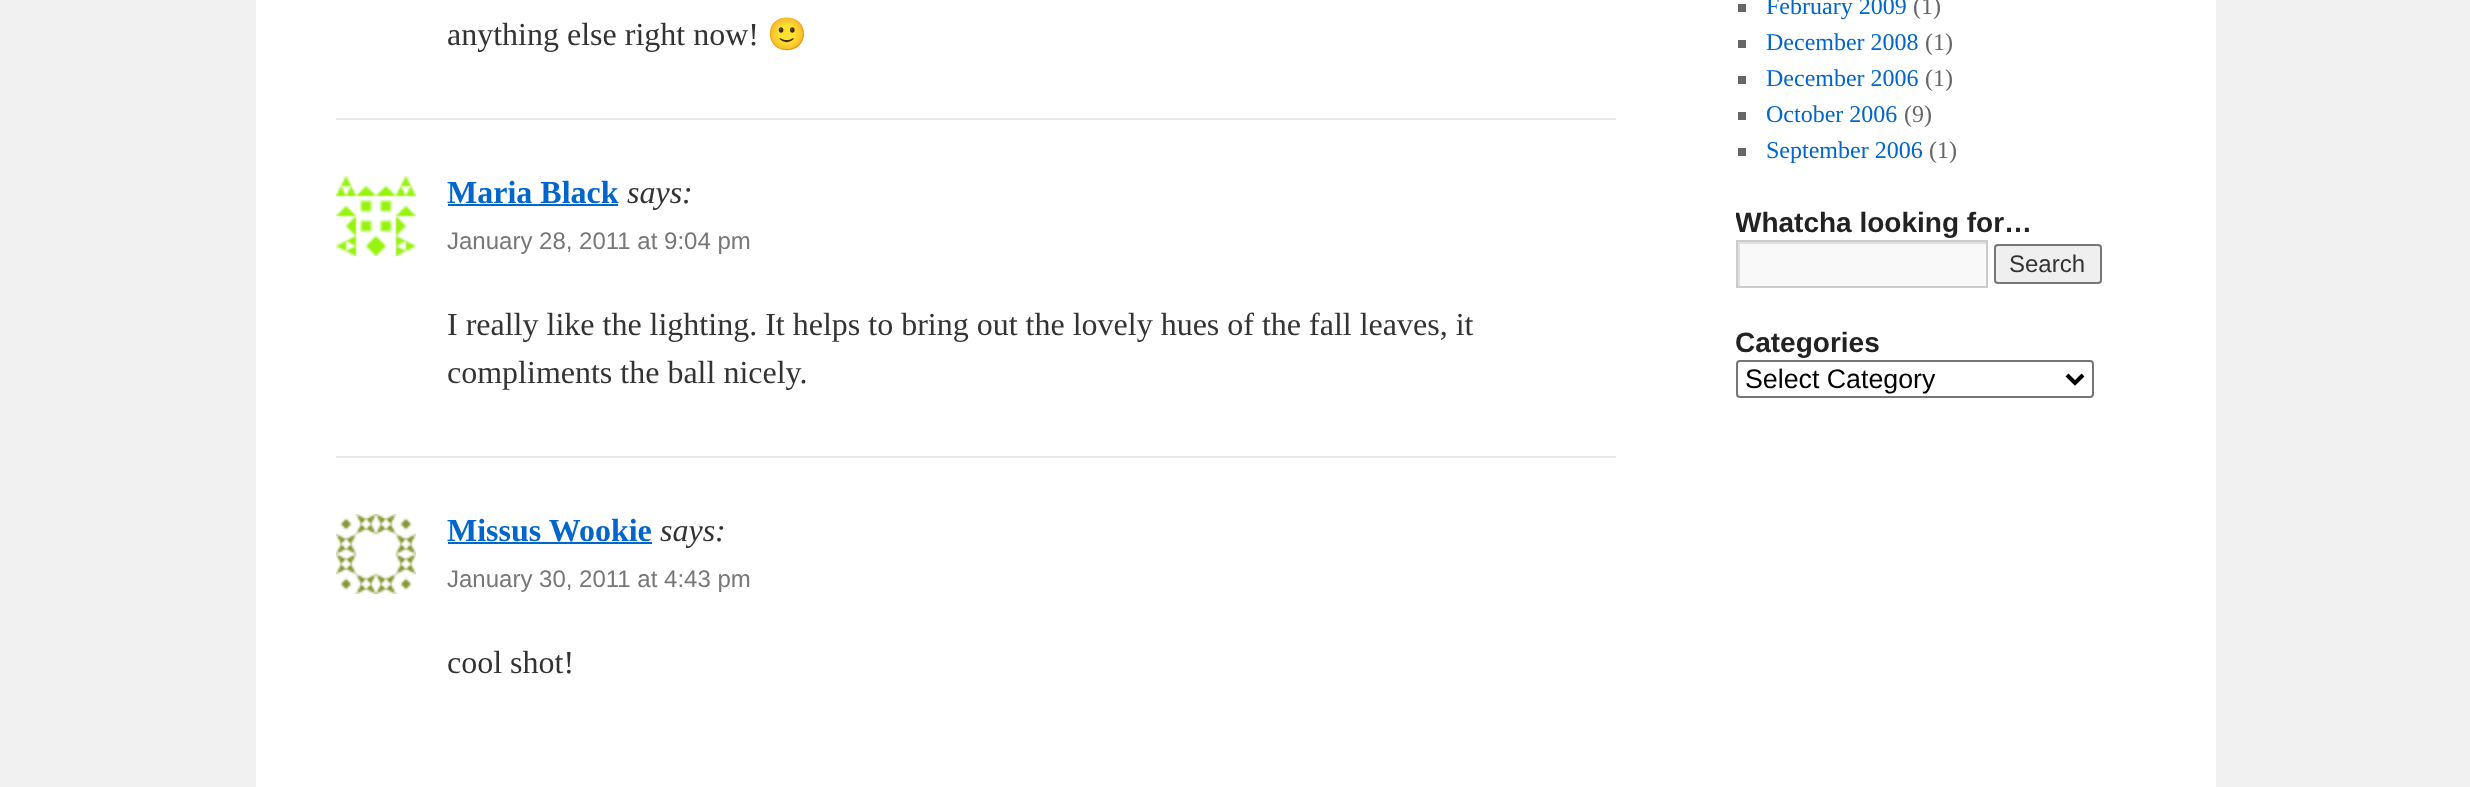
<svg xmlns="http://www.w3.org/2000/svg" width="2470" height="787">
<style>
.a{font:32px Liberation Serif;fill:#333}
.b{font:32px Noto Color Emoji;fill:#333}
.c{font:bold 32px Liberation Serif;fill:#06c}
.d{font:italic 32px Liberation Serif;fill:#333}
.e{font:24px Liberation Sans;fill:#777}
.f{font:24px Liberation Serif;fill:#06c}
.g{font:24px Liberation Serif;fill:#666}
.h{font:bold 28px Liberation Sans;fill:#222}
.i{font:24px Liberation Sans;fill:#333}
.j{font:26.75px Liberation Sans;fill:#000}
</style>
<defs>
<clipPath id="clip1"><path d="M1738 242h248v44H1738z"/></clipPath>
<clipPath id="clip2"><path d="M1736 0h440v434H1736z"/></clipPath>
</defs>
<rect width="100%" height="100%" fill="#f1f1f1"/>
<path fill="#fff" d="M256 0h1960v787H256z"/>
<path fill="#e7e7e7" d="M336 118h1280v2H336z"/>
<path fill="#e7e7e7" d="M336 456h1280v2H336z"/>
<image href="1.png" x="336" y="176" width="80" height="80"/>
<path fill="#06c" d="M448 204h170v2H448z"/>
<image href="2.png" x="336" y="514" width="80" height="80"/>
<path fill="#06c" d="M448 542h204v2H448z"/>
<path fill="#666" d="M1738 4h8v8H1738z"/>
<path fill="#666" d="M1738 40h8v8H1738z"/>
<path fill="#666" d="M1738 76h8v8H1738z"/>
<path fill="#666" d="M1738 112h8v8H1738z"/>
<path fill="#666" d="M1738 148h8v8H1738z"/>
<path fill="#f9f9f9" d="M1740 244h246v42H1740z"/>
<g clip-path="url(#clip1)">
<path fill="#e0e0e0" fill-rule="evenodd" d="M1540 44h644v440h-644zm200 200h248v44h-248z"/>
</g>
<path fill="none" stroke="#ccc" stroke-width="2" d="M1737 241h250v46H1737z"/>
<rect fill="#efefef" stroke="#767676" stroke-width="2" x="1995" y="245" width="106" height="38" rx="3"/>
<rect fill="none" stroke="#767676" stroke-width="2" x="1737" y="361" width="356" height="36" rx="3"/>
<path fill="none" stroke="#000" stroke-width="4" d="M2067 375l8 8l8-8"/>
<text class="a" x="447" y="45">anything else right now!</text>
<text class="b" x="767" y="45">🙂</text>
<text class="c" x="447" y="203">Maria Black</text>
<text class="d" x="627" y="203">says:</text>
<text class="e" x="447" y="249">January 28, 2011 at 9:04 pm</text>
<text class="a" x="447" y="335">I really like the lighting. It helps to bring out the lovely hues of the fall leaves, it</text>
<text class="a" x="447" y="383">compliments the ball nicely.</text>
<text class="c" x="447" y="541">Missus Wookie</text>
<text class="d" x="660" y="541">says:</text>
<text class="e" x="447" y="587">January 30, 2011 at 4:43 pm</text>
<text class="a" x="447" y="673">cool shot!</text>
<text class="f" x="1766" y="14">February 2009</text>
<text class="g" x="1913" y="14">(1)</text>
<text class="f" x="1766" y="50">December 2008</text>
<text class="g" x="1925" y="50">(1)</text>
<text class="f" x="1766" y="86">December 2006</text>
<text class="g" x="1925" y="86">(1)</text>
<text class="f" x="1766" y="122">October 2006</text>
<text class="g" x="1904" y="122">(9)</text>
<text class="f" x="1766" y="158">September 2006</text>
<text class="g" x="1929" y="158">(1)</text>
<g clip-path="url(#clip2)">
<text class="h" x="1735" y="232">Whatcha looking for…</text>
</g>
<text class="i" x="2009" y="272">Search</text>
<text class="h" x="1735" y="352">Categories</text>
<text class="j" x="1745" y="388">Select Category</text>
</svg>
